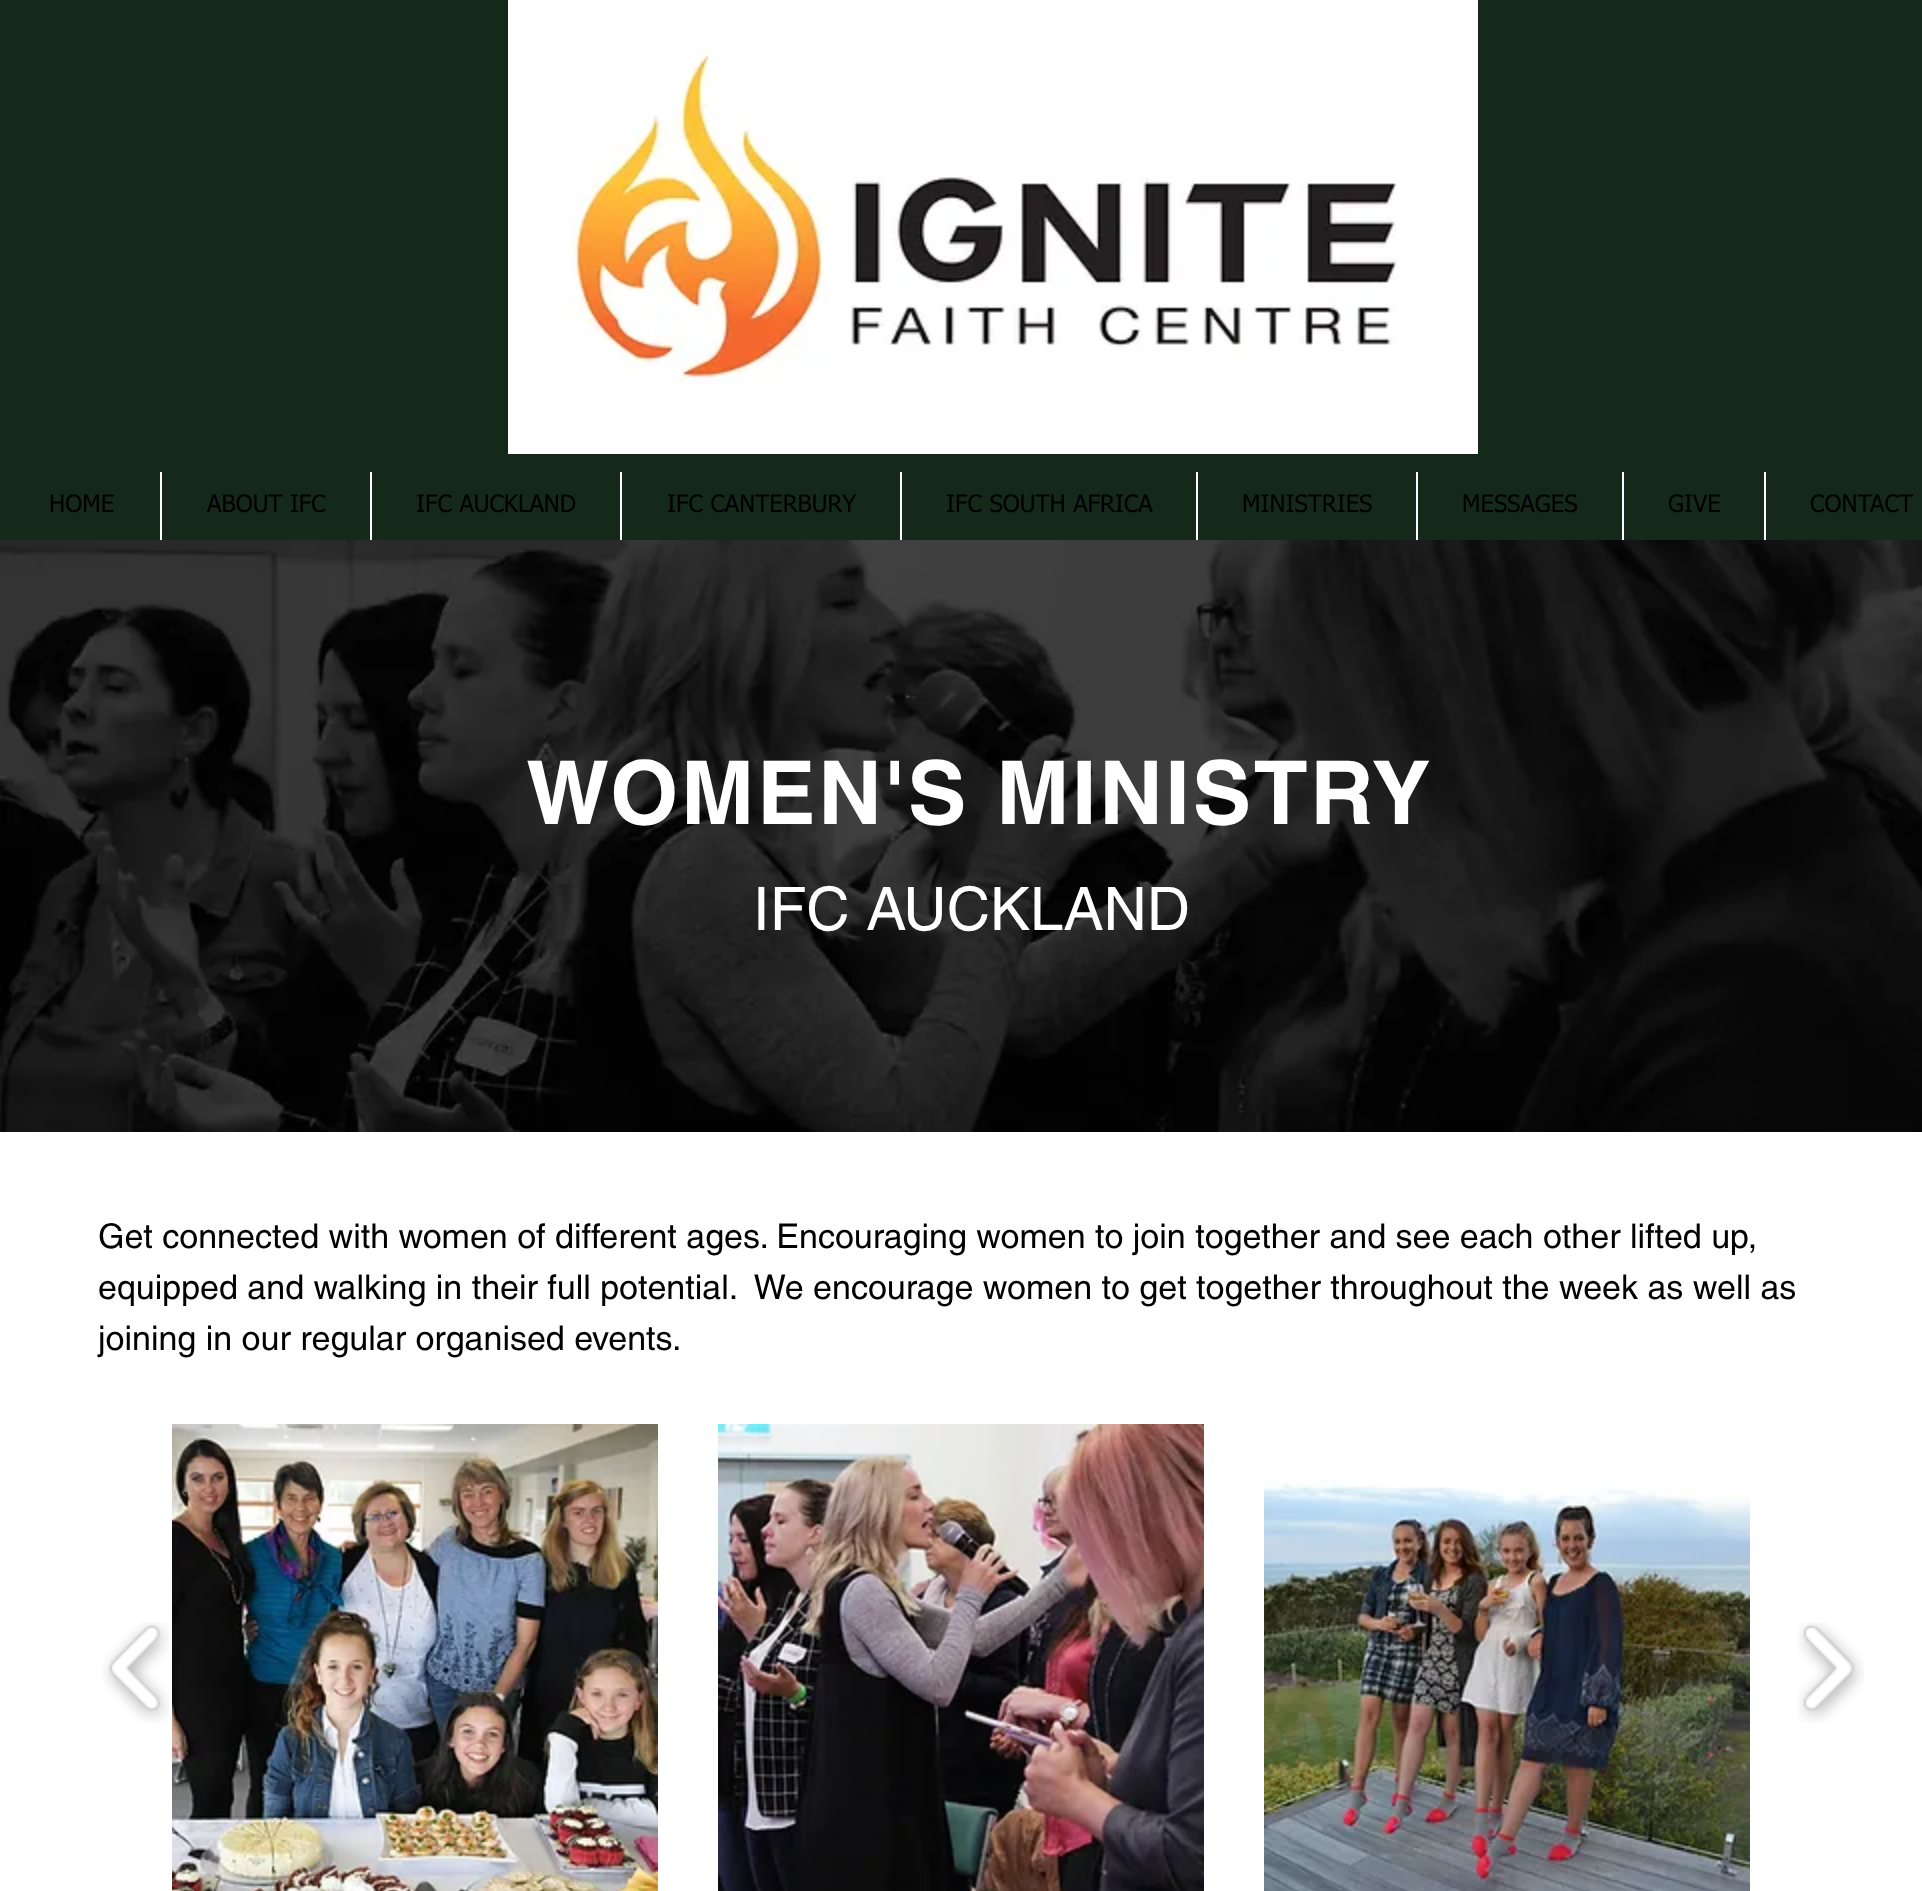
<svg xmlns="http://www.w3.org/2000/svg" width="1922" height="1891">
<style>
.a{font:24px tahoma;fill:#000}
.b{font:bold 88px helvetica;letter-spacing:2.6px;fill:#fff}
.c{font:60px helvetica;fill:#fff}
.d{font:34px helvetica;fill:#000}
</style>
<rect width="100%" height="100%" fill="#15291b"/>
<image href="1.png" x="508" y="0" width="970" height="454"/>
<path fill="#fff" d="M160 472h2v68H160z"/>
<path fill="#fff" d="M370 472h2v68H370z"/>
<path fill="#fff" d="M620 472h2v68H620z"/>
<path fill="#fff" d="M900 472h2v68H900z"/>
<path fill="#fff" d="M1196 472h2v68H1196z"/>
<path fill="#fff" d="M1416 472h2v68H1416z"/>
<path fill="#fff" d="M1622 472h2v68H1622z"/>
<path fill="#fff" d="M1764 472h2v68H1764z"/>
<image href="2.png" x="0" y="540" width="1922" height="592"/>
<path fill="#fff" d="M0 1132h1922v759H0z"/>
<image href="3.png" x="103" y="1622" width="66" height="101"/>
<image href="4.png" x="172" y="1424" width="486" height="467"/>
<image href="5.png" x="718" y="1424" width="486" height="467"/>
<image href="6.png" x="1264" y="1479" width="486" height="412"/>
<image href="7.png" x="1798" y="1622" width="66" height="101"/>
<text class="a" x="49" y="512">HOME</text>
<text class="a" x="207" y="512">ABOUT IFC</text>
<text class="a" x="416" y="512">IFC AUCKLAND</text>
<text class="a" x="667" y="512">IFC CANTERBURY</text>
<text class="a" x="946" y="512">IFC SOUTH AFRICA</text>
<text class="a" x="1242" y="512">MINISTRIES</text>
<text class="a" x="1462" y="512">MESSAGES</text>
<text class="a" x="1668" y="512">GIVE</text>
<text class="a" x="1810" y="512">CONTACT</text>
<text class="b" x="526" y="824">WOMEN'S MINISTRY</text>
<text class="c" x="753" y="930">IFC AUCKLAND</text>
<text class="d" x="98" y="1248">Get connected with women of different ages. Encouraging women to join together and see each other lifted up,</text>
<text class="d" xml:space="preserve" x="98" y="1299">equipped and walking in their full potential.  We encourage women to get together throughout the week as well as</text>
<text class="d" x="98" y="1350">joining in our regular organised events.</text>
</svg>
